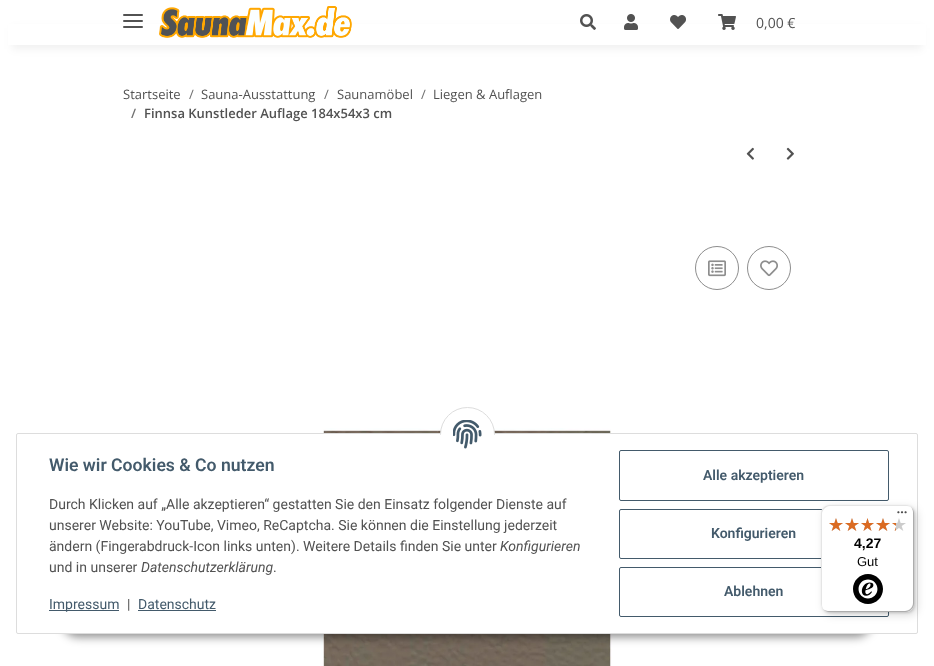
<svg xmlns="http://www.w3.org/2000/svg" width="934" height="666">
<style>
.a{font:14px Open Sans;fill:#525252}
.b{font:13px Open Sans;fill:#525252}
.c{font:13px Open Sans;fill:#707070}
.d{font:600 13px Open Sans;fill:#707070}
.e{font:600 13px Open Sans;fill:#525252}
.f{font:600 17.6px Roboto;fill:#435a6b}
.g{font:14px Roboto;fill:#525252}
.h{font:italic 14px Roboto;fill:#525252}
.i{font:14px Roboto;fill:#435a6b}
.j{font:600 14px Roboto;fill:#435a6b}
.k{font:bold 14px Liberation Sans;fill:#000}
.l{font:13px Liberation Sans;fill:#000}
</style>
<rect width="100%" height="100%" fill="#fff"/>
<path fill="#0000000f" filter="blur(4.5px)" d="M12 28h910v21H12z"/>
<path fill="#fff" d="M8 24h918v21H8z"/>
<rect fill="#525252" x="123" y="20" width="20" height="2" rx="1"/>
<rect fill="#525252" x="123" y="14" width="20" height="2" rx="1"/>
<rect fill="#525252" x="123" y="26" width="20" height="2" rx="1"/>
<image href="1.png" x="159" y="6" width="193" height="32"/>
<image href="2.png" x="580" y="14" width="16" height="16"/>
<image href="3.png" x="624" y="14" width="14" height="16"/>
<image href="4.png" x="670" y="15" width="16" height="14"/>
<image href="5.png" x="718" y="14" width="18" height="16"/>
<image href="6.png" x="746" y="147" width="8" height="13"/>
<image href="7.png" x="786" y="147" width="8" height="13"/>
<circle fill="none" stroke="#8d8d8d" cx="717" cy="268" r="21.5"/>
<image href="8.png" x="708" y="260" width="18" height="17"/>
<circle fill="none" stroke="#8d8d8d" cx="769" cy="268" r="21.5"/>
<image href="9.png" x="760" y="260" width="18" height="17"/>
<image href="10.png" x="321" y="428" width="291" height="238"/>
<rect fill="#00000073" filter="blur(5px)" x="62" y="605" width="810" height="32" rx="16"/>
<rect fill="#fff" stroke="#ddd" x="16.5" y="433.5" width="901" height="200" rx="1.5"/>
<circle fill="#fff" stroke="#ddd" cx="467.5" cy="434.5" r="27"/>
<path fill="#fff" d="M440 435h55v27H440z"/>
<image href="11.png" x="453" y="420" width="29" height="29"/>
<path fill="#435a6b" d="M49 610h70v1H49z"/>
<path fill="#435a6b" d="M138 610h78v1H138z"/>
<rect fill="none" stroke="#435a6b" x="619.5" y="450.5" width="269" height="50" rx="1.5"/>
<rect fill="none" stroke="#435a6b" x="619.5" y="509.5" width="269" height="49" rx="1.5"/>
<rect fill="none" stroke="#435a6b" x="619.5" y="567.5" width="269" height="49" rx="1.5"/>
<rect fill="#00000026" filter="blur(4px)" x="824" y="508" width="93" height="107" rx="8"/>
<rect fill="#00000026" filter="blur(1px)" x="822" y="506" width="93" height="107" rx="8"/>
<rect fill="#fff" x="821" y="505" width="93" height="107" rx="8"/>
<path fill="#e5e5e5" d="M830 506h77c2 0 4 1 6 3c-2-2-4-4-7-4h-77c-4 0-8 4-8 8v91c0 3 2 5 4 7c-2-2-3-4-3-6v-91c0-4 4-8 8-8z"/>
<path fill="#ccc" d="M822 608c2 2 4 4 7 4h77c4 0 8-4 8-8v-91c0-3-2-5-4-7c2 2 3 4 3 6v91c0 4-4 8-8 8h-77c-2 0-4-1-6-3z"/>
<path fill="#32323233" d="M823 609c1 2 4 3 6 3h77c4 0 8-4 8-8v-91c0-2-1-5-3-6c1 1 2 3 2 5v91c0 5-3 8-8 8h-77c-2 0-4-1-5-2z"/>
<image href="12.png" x="897" y="511" width="10" height="3"/>
<path fill="#ffffff4d" d="M906 612c4.5 0 8-3.5 8-8c0 4-4 8-8 8z"/>
<image href="13.png" x="829" y="518" width="14" height="13"/>
<image href="13.png" x="845" y="518" width="14" height="13"/>
<image href="14.png" x="861" y="518" width="13" height="13"/>
<image href="13.png" x="876" y="518" width="14" height="13"/>
<image href="13.png" x="892" y="518" width="14" height="13"/>
<image href="15.png" x="829" y="518" width="14" height="13"/>
<image href="15.png" x="845" y="518" width="14" height="13"/>
<image href="16.png" x="861" y="518" width="13" height="13"/>
<image href="15.png" x="876" y="518" width="14" height="13"/>
<image href="17.png" x="892" y="523" width="4" height="8"/>
<image href="18.png" x="853" y="574" width="30" height="30"/>
<text class="a" x="756" y="28">0,00 €</text>
<text class="b" x="123" y="99">Startseite</text>
<text class="c" x="189" y="99">/</text>
<text class="b" x="201" y="99">Sauna-Ausstattung</text>
<text class="c" x="324" y="99">/</text>
<text class="b" x="337" y="99">Saunamöbel</text>
<text class="c" x="421" y="99">/</text>
<text class="b" x="433" y="99">Liegen &amp; Auflagen</text>
<text class="d" x="131" y="118">/</text>
<text class="e" x="144" y="118">Finnsa Kunstleder Auflage 184x54x3 cm</text>
<text class="f" x="49" y="471">Wie wir Cookies &amp; Co nutzen</text>
<text class="g" x="49" y="509">Durch Klicken auf „Alle akzeptieren“ gestatten Sie den Einsatz folgender Dienste auf</text>
<text class="g" x="49" y="530">unserer Website: YouTube, Vimeo, ReCaptcha. Sie können die Einstellung jederzeit</text>
<text class="g" x="49" y="551">ändern (Fingerabdruck-Icon links unten). Weitere Details finden Sie unter</text>
<text class="h" x="500" y="551">Konfigurieren</text>
<text class="g" x="49" y="572">und in unserer</text>
<text class="h" x="141" y="572">Datenschutzerklärung</text>
<text class="g" x="273" y="572">.</text>
<text class="i" x="49" y="609">Impressum</text>
<text class="g" x="127" y="609">|</text>
<text class="i" x="138" y="609">Datenschutz</text>
<text class="j" x="703" y="480">Alle akzeptieren</text>
<text class="j" x="711" y="538">Konfigurieren</text>
<text class="j" x="724" y="596">Ablehnen</text>
<text class="k" x="854" y="548">4,27</text>
<text class="l" x="857" y="566">Gut</text>
</svg>
